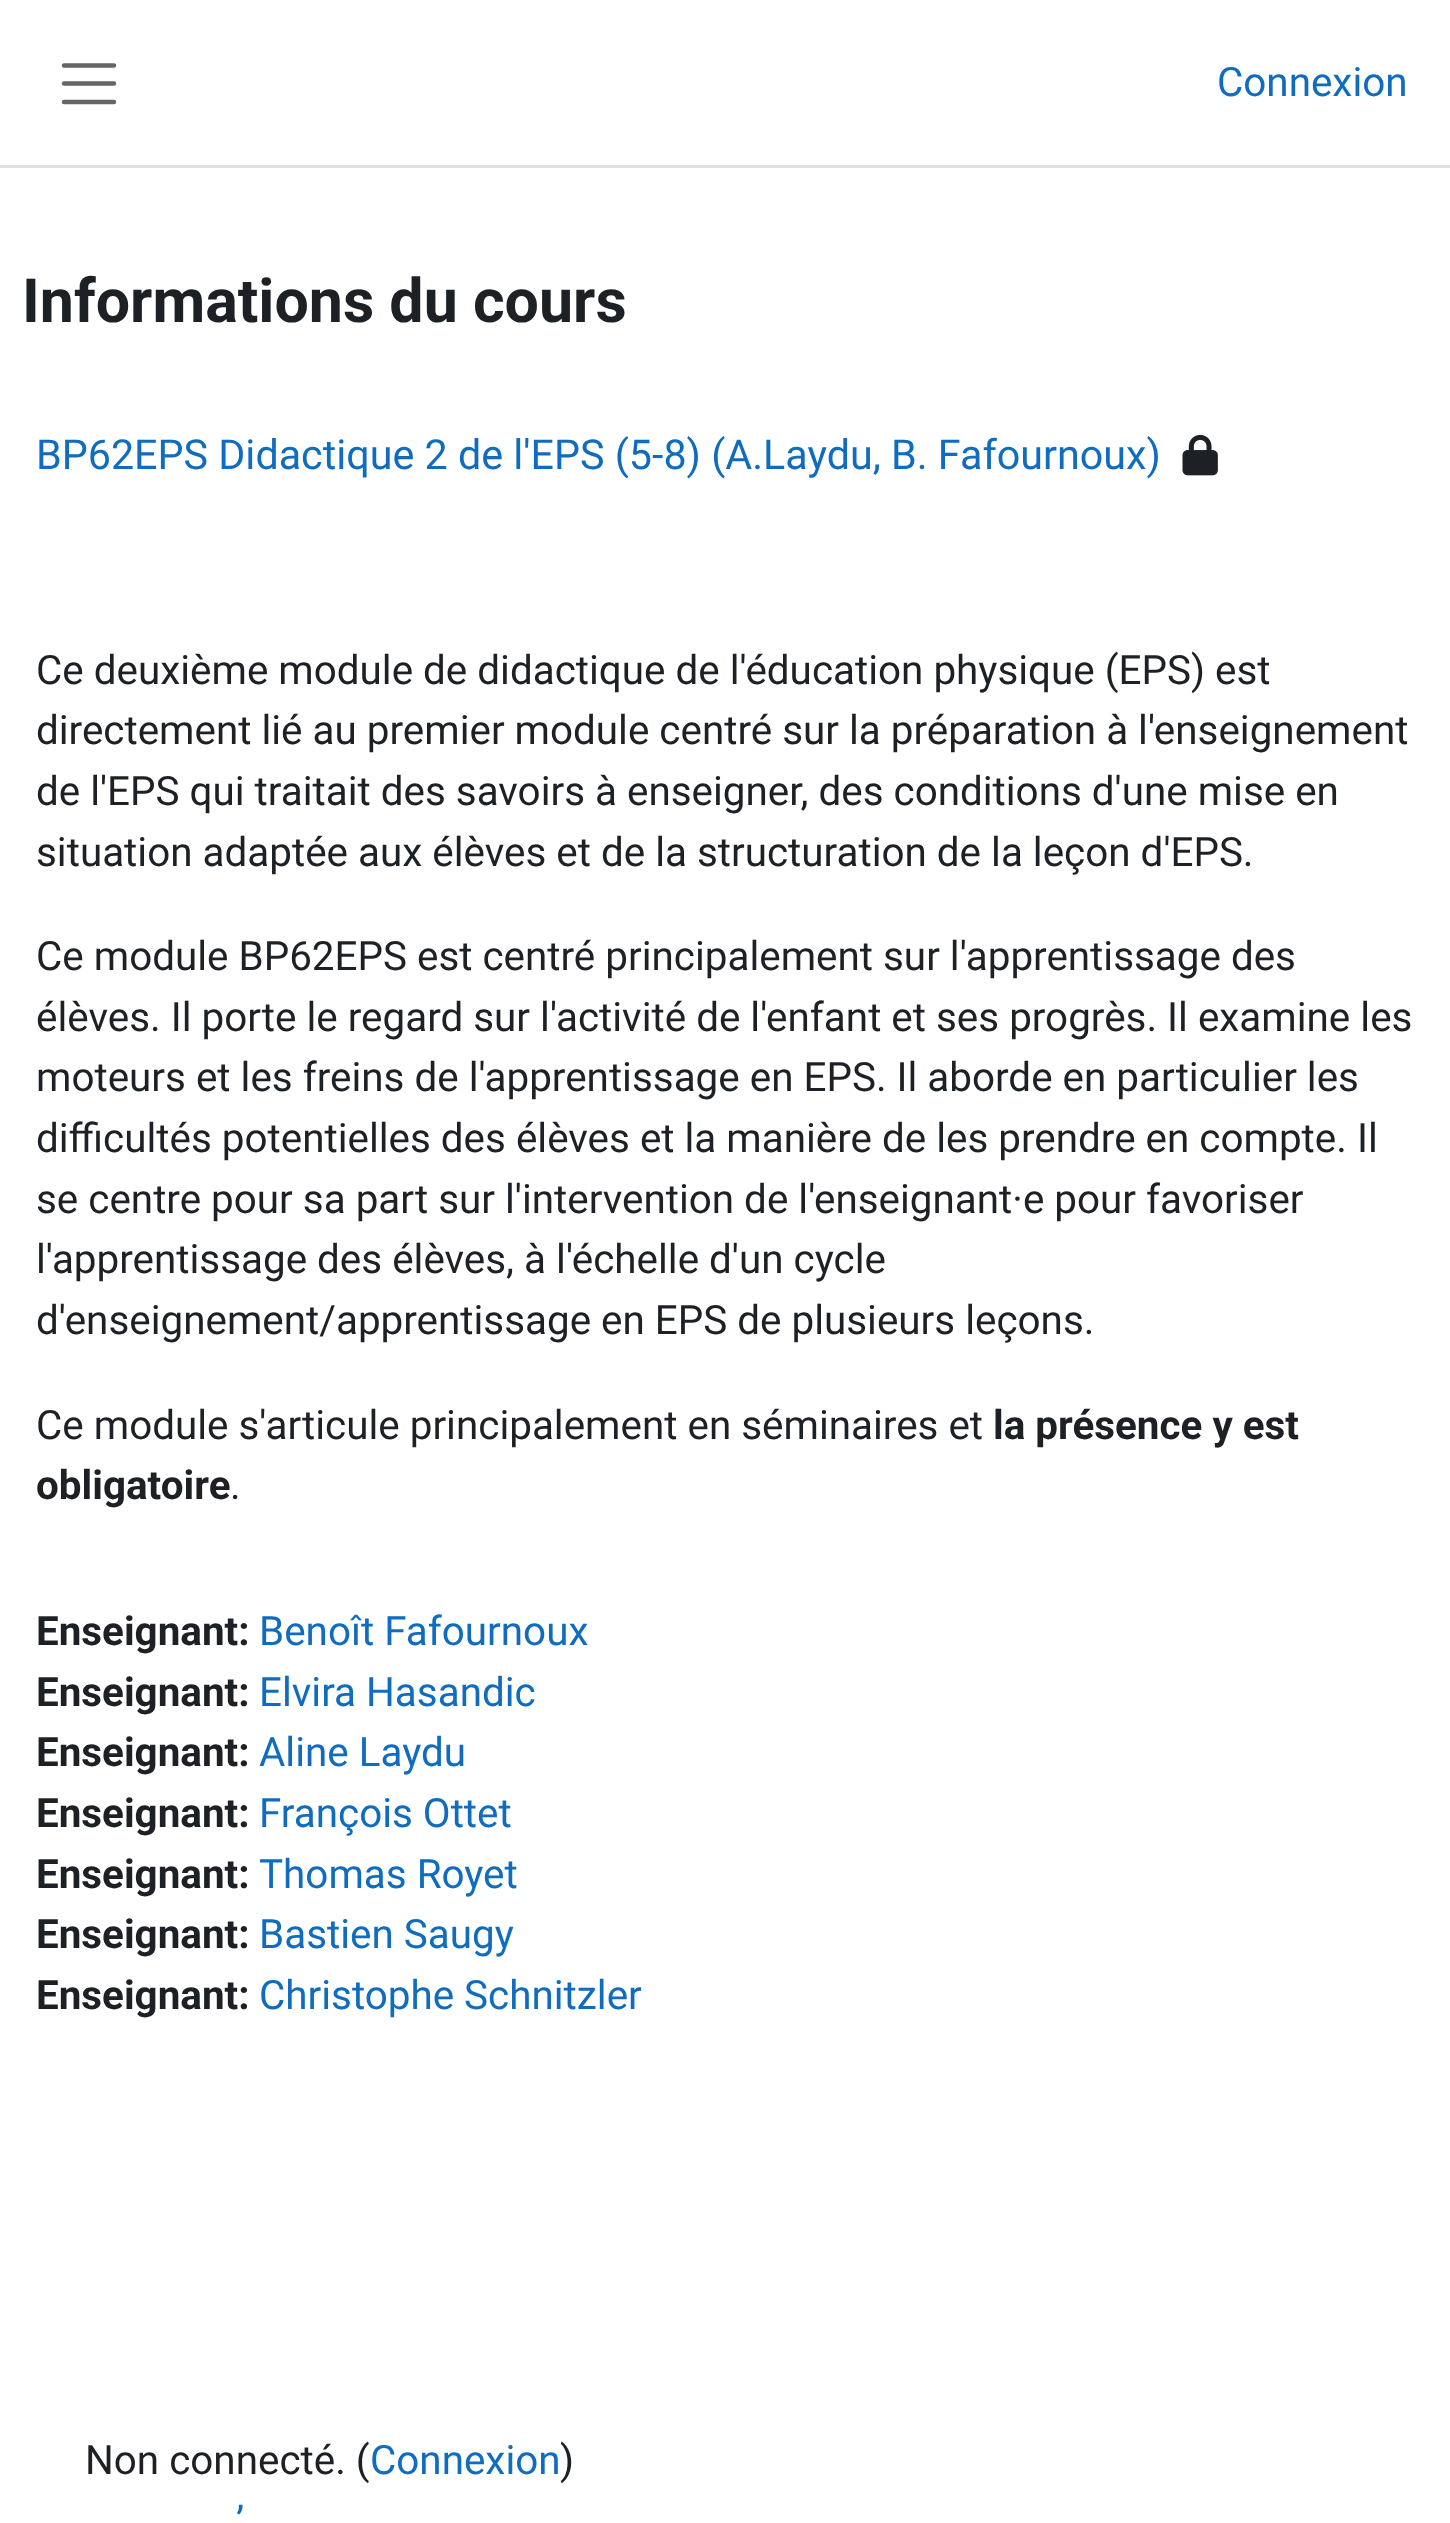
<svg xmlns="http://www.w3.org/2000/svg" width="1450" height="2523">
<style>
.a{font:40.4px Roboto;fill:#0f6cbf}
.b{font:bold 60.9px Roboto;fill:#1d2125}
.c{font:41.25px Roboto;fill:#0f6cbf}
.d{font:40.4px Roboto;fill:#1d2125}
.e{font:bold 40.4px Roboto;fill:#1d2125}
</style>
<rect width="100%" height="100%" fill="#fff"/>
<path fill="#dee2e6" d="M0 165h1450v3H0z"/>
<path fill="none" stroke="#666" stroke-width="4.5" stroke-linecap="round" d="M64 65.5h50m-50 18h50m-50 18.5h50"/>
<image href="1.png" x="1182" y="434" width="36" height="42"/>
<text class="a" x="1217" y="96">Connexion</text>
<text class="b" x="22" y="322">Informations du cours</text>
<text class="c" x="36" y="469">BP62EPS Didactique 2 de l'EPS (5-8) (A.Laydu, B. Fafournoux)</text>
<text class="d" x="36" y="684">Ce deuxième module de didactique de l'éducation physique (EPS) est</text>
<text class="d" x="36" y="744">directement lié au premier module centré sur la préparation à l'enseignement</text>
<text class="d" x="36" y="805">de l'EPS qui traitait des savoirs à enseigner, des conditions d'une mise en</text>
<text class="d" x="36" y="866">situation adaptée aux élèves et de la structuration de la leçon d'EPS.</text>
<text class="d" x="36" y="970">Ce module BP62EPS est centré principalement sur l'apprentissage des</text>
<text class="d" x="36" y="1031">élèves. Il porte le regard sur l'activité de l'enfant et ses progrès. Il examine les</text>
<text class="d" x="36" y="1091">moteurs et les freins de l'apprentissage en EPS. Il aborde en particulier les</text>
<text class="d" x="36" y="1152">difficultés potentielles des élèves et la manière de les prendre en compte. Il</text>
<text class="d" x="36" y="1213">se centre pour sa part sur l'intervention de l'enseignant·e pour favoriser</text>
<text class="d" x="36" y="1273">l'apprentissage des élèves, à l'échelle d'un cycle</text>
<text class="d" x="36" y="1334">d'enseignement/apprentissage en EPS de plusieurs leçons.</text>
<text class="d" x="36" y="1439">Ce module s'articule principalement en séminaires et</text>
<text class="e" x="993" y="1439">la présence y est</text>
<text class="e" x="36" y="1499">obligatoire</text>
<text class="d" x="230" y="1499">.</text>
<text class="e" x="36" y="1645">Enseignant:</text>
<text class="a" x="259" y="1645">Benoît Fafournoux</text>
<text class="e" x="36" y="1706">Enseignant:</text>
<text class="a" x="259" y="1706">Elvira Hasandic</text>
<text class="e" x="36" y="1766">Enseignant:</text>
<text class="a" x="259" y="1766">Aline Laydu</text>
<text class="e" x="36" y="1827">Enseignant:</text>
<text class="a" x="259" y="1827">François Ottet</text>
<text class="e" x="36" y="1888">Enseignant:</text>
<text class="a" x="259" y="1888">Thomas Royet</text>
<text class="e" x="36" y="1948">Enseignant:</text>
<text class="a" x="259" y="1948">Bastien Saugy</text>
<text class="e" x="36" y="2009">Enseignant:</text>
<text class="a" x="259" y="2009">Christophe Schnitzler</text>
<text class="d" x="85" y="2474">Non connecté. (</text>
<text class="a" x="370" y="2474">Connexion</text>
<text class="d" x="560" y="2474">)</text>
<text class="a" x="236" y="2535">’</text>
</svg>
